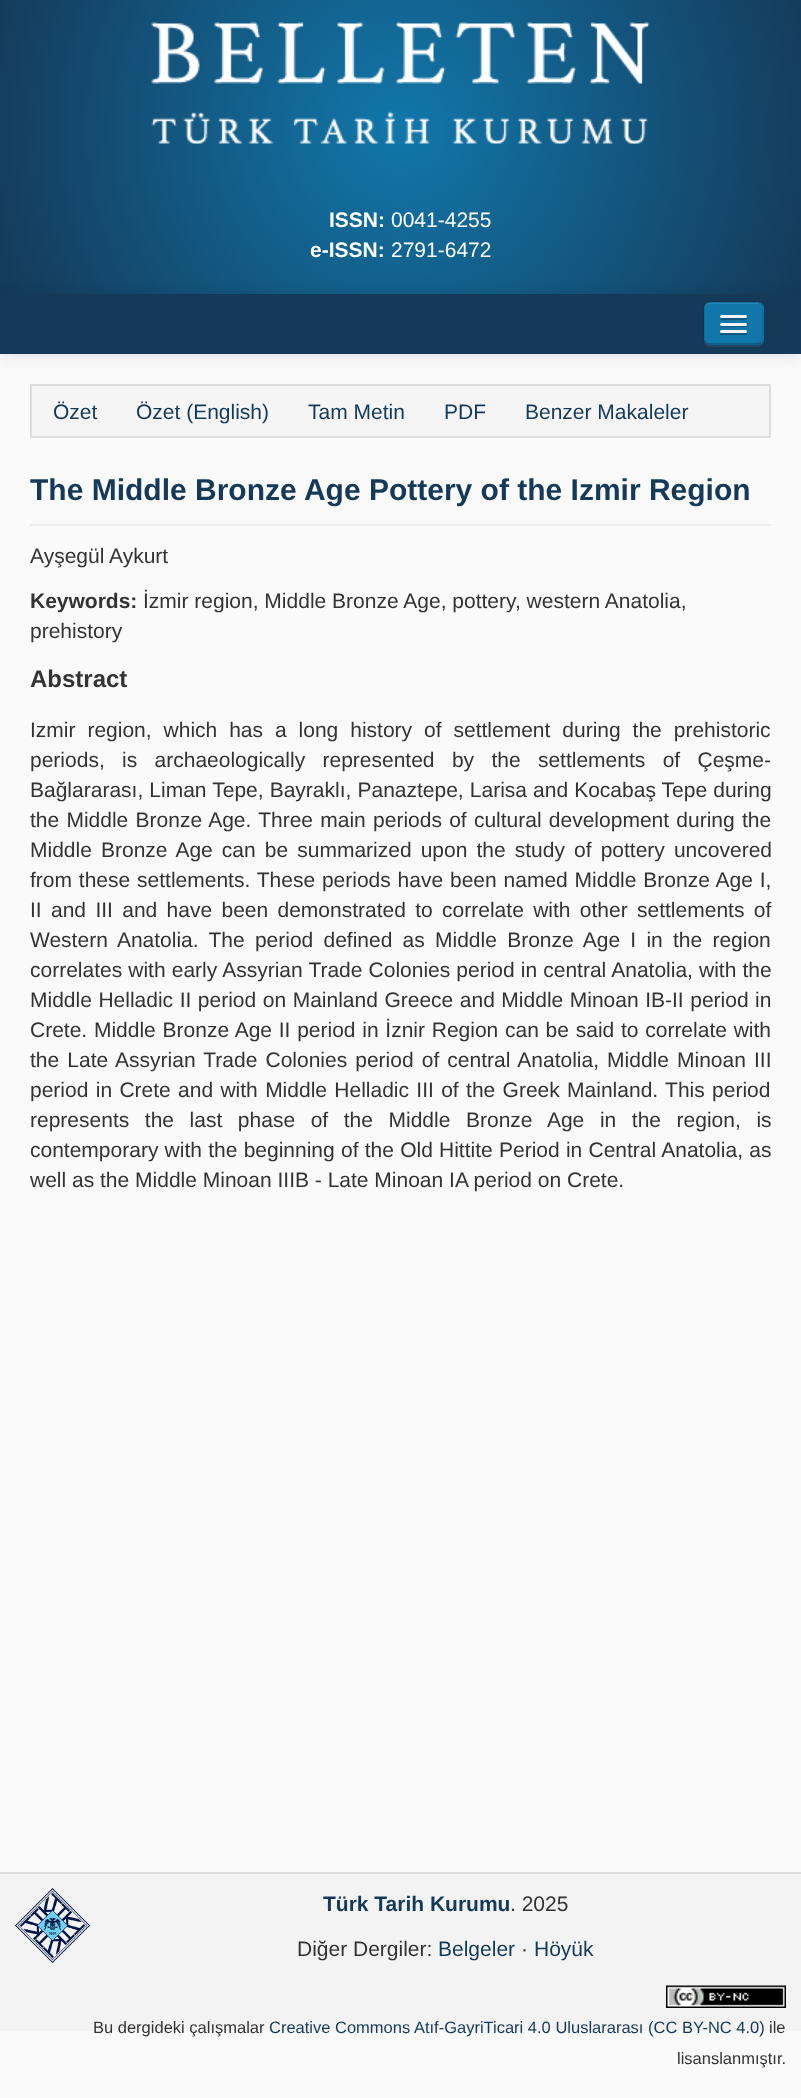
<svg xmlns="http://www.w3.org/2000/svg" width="801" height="2098">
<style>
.a{font:bold 21px Liberation Sans;fill:#fff}
.b{font:21px Liberation Sans;fill:#fff}
.c{font:21px Liberation Sans;fill:#153959}
.d{font:bold 30px Liberation Sans;fill:#153959}
.e{font:21px Liberation Sans;fill:#333}
.f{font:bold 21px Liberation Sans;fill:#333}
.g{font:bold 24px Liberation Sans;fill:#333}
.h{font:bold 21px Liberation Sans;fill:#153959}
.i{font:16.5px Liberation Sans;fill:#333}
.j{font:16.5px Liberation Sans;fill:#153959}
</style>
<defs>
<radialGradient id="g1" gradientUnits="userSpaceOnUse" cx="401" cy="128" r="433"><stop offset="0" stop-color="#17a"/><stop offset="1" stop-color="#153959"/></radialGradient>
</defs>
<rect width="100%" height="100%" fill="#fafafa"/>
<path fill="url(#g1)" d="M0 0h801v294H0z"/>
<image href="1.png" x="151" y="22" width="499" height="122"/>
<path fill="#0000001a" filter="blur(7.5px)" d="M0 296h801v60H0z"/>
<path fill="#153959" d="M0 294h801v60H0z"/>
<path fill="#274865" d="M704 341c0 4 3 6 6 6h48c3 0 6-3 6-6v-32l-1-3v34l-1 2c0 2-2 3-3 3h-41c-5 0-12 2-14-4z"/>
<rect fill="#17a" x="704" y="302" width="60" height="43" rx="6"/>
<path fill="#2985b3" d="M710 304h48c2 0 4 3 4 5c0-8-7-6-13-6h-31c-6 0-13-2-13 6c0-2 2-5 5-5z"/>
<path fill="none" stroke="#00000040" stroke-width="1.5" d="M761 342.5c-1 1-2 1.5-3.5 1.5h-48c-1.5 0-2.5-.5-3.5-1.5"/>
<path fill="none" stroke="#0000001a" stroke-width="1.5" d="M706 342.5c-1-1-2-2-2-3.5v-31.5c0-1.5 1-2.5 2-3.5c1-1 2-2 3.5-2h48c1.5 0 2.5 1 3.5 2c1 1 2 2 2 3.5v31.5c0 1.5-1 2.5-2 3.5"/>
<path fill="#0d5980" d="M720.5 317.5l-.5 1.5c.5 2 5 1 5.5 1h16c.5 0 5 1 5.5-1l-.5-1.5l-1 .5h-24z"/>
<rect fill="#f5f5f5" x="720" y="315" width="27" height="3" rx="1.5"/>
<path fill="#0d5980" d="M720 325c-1.5 3 5.5 2 5.5 2h16c0 0 7 1 5.5-2c-.5 0-1 .5-1.5 .5h-24c-.5 0-1-.5-1.5-.5z"/>
<rect fill="#f5f5f5" x="720" y="323" width="27" height="3" rx="1.5"/>
<path fill="#0d5980" d="M720.5 332.5l-.5 1.5c.5 2 5 1 5.5 1h16c.5 0 5 1 5.5-1l-.5-1.5l-1 .5h-24z"/>
<rect fill="#f5f5f5" x="720" y="330" width="27" height="3" rx="1.5"/>
<path fill="#f5f5f5" stroke="#ddd" stroke-width="2" d="M31 385h739v52H31z"/>
<path fill="#eee" d="M30 524h741v2H30z"/>
<path fill="#f3f3f3" d="M0 1874h801v157H0z"/>
<path fill="#ddd" d="M0 1872h801v2H0z"/>
<image href="2.png" x="15" y="1888" width="75" height="75"/>
<image href="3.png" x="666" y="1985" width="120" height="23"/>
<text class="a" x="329" y="227">ISSN:</text>
<text class="b" x="391" y="227">0041-4255</text>
<text class="a" x="310" y="257">e-ISSN:</text>
<text class="b" x="391" y="257">2791-6472</text>
<text class="c" x="53" y="419">Özet</text>
<text class="c" x="136" y="419">Özet (English)</text>
<text class="c" x="308" y="419">Tam Metin</text>
<text class="c" x="444" y="419">PDF</text>
<text class="c" x="525" y="419">Benzer Makaleler</text>
<text class="d" x="30" y="500">The Middle Bronze Age Pottery of the Izmir Region</text>
<text class="e" x="30" y="563">Ayşegül Aykurt</text>
<text class="f" x="30" y="608">Keywords:</text>
<text class="e" x="143" y="608">İzmir region, Middle Bronze Age, pottery, western Anatolia,</text>
<text class="e" x="30" y="638">prehistory</text>
<text class="g" x="30" y="687">Abstract</text>
<text class="e" x="30" y="737" word-spacing="6.1">Izmir region, which has a long history of settlement during the prehistoric</text>
<text class="e" x="30" y="767" word-spacing="11.5">periods, is archaeologically represented by the settlements of Çeşme-</text>
<text class="e" x="30" y="797" word-spacing="0.25">Bağlararası, Liman Tepe, Bayraklı, Panaztepe, Larisa and Kocabaş Tepe during</text>
<text class="e" x="30" y="827" word-spacing="1.4">the Middle Bronze Age. Three main periods of cultural development during the</text>
<text class="e" x="30" y="857" word-spacing="3.25">Middle Bronze Age can be summarized upon the study of pottery uncovered</text>
<text class="e" x="30" y="887" word-spacing="1">from these settlements. These periods have been named Middle Bronze Age I,</text>
<text class="e" x="30" y="917" word-spacing="3.5">II and III and have been demonstrated to correlate with other settlements of</text>
<text class="e" x="30" y="947" word-spacing="4.4">Western Anatolia. The period defined as Middle Bronze Age I in the region</text>
<text class="e" x="30" y="977" word-spacing="0.25">correlates with early Assyrian Trade Colonies period in central Anatolia, with the</text>
<text class="e" x="30" y="1007" word-spacing="0.7">Middle Helladic II period on Mainland Greece and Middle Minoan IB-II period in</text>
<text class="e" x="30" y="1037" word-spacing="0.9">Crete. Middle Bronze Age II period in İznir Region can be said to correlate with</text>
<text class="e" x="30" y="1067" word-spacing="2.25">the Late Assyrian Trade Colonies period of central Anatolia, Middle Minoan III</text>
<text class="e" x="30" y="1097" word-spacing="1.5">period in Crete and with Middle Helladic III of the Greek Mainland. This period</text>
<text class="e" x="30" y="1127" word-spacing="9.75">represents the last phase of the Middle Bronze Age in the region, is</text>
<text class="e" x="30" y="1157" word-spacing="0.4">contemporary with the beginning of the Old Hittite Period in Central Anatolia, as</text>
<text class="e" x="30" y="1187">well as the Middle Minoan IIIB - Late Minoan IA period on Crete.</text>
<text class="h" x="323" y="1911">Türk Tarih Kurumu</text>
<text class="e" x="510" y="1911">. 2025</text>
<text class="e" x="297" y="1956">Diğer Dergiler:</text>
<text class="c" x="438" y="1956">Belgeler</text>
<text class="e" x="521" y="1956">·</text>
<text class="c" x="534" y="1956">Höyük</text>
<text class="i" x="93" y="2033">Bu dergideki çalışmalar</text>
<text class="j" x="269" y="2033">Creative Commons Atıf-GayriTicari 4.0 Uluslararası (CC BY-NC 4.0)</text>
<text class="i" x="769" y="2033">ile</text>
<text class="i" x="677" y="2064">lisanslanmıştır.</text>
</svg>
